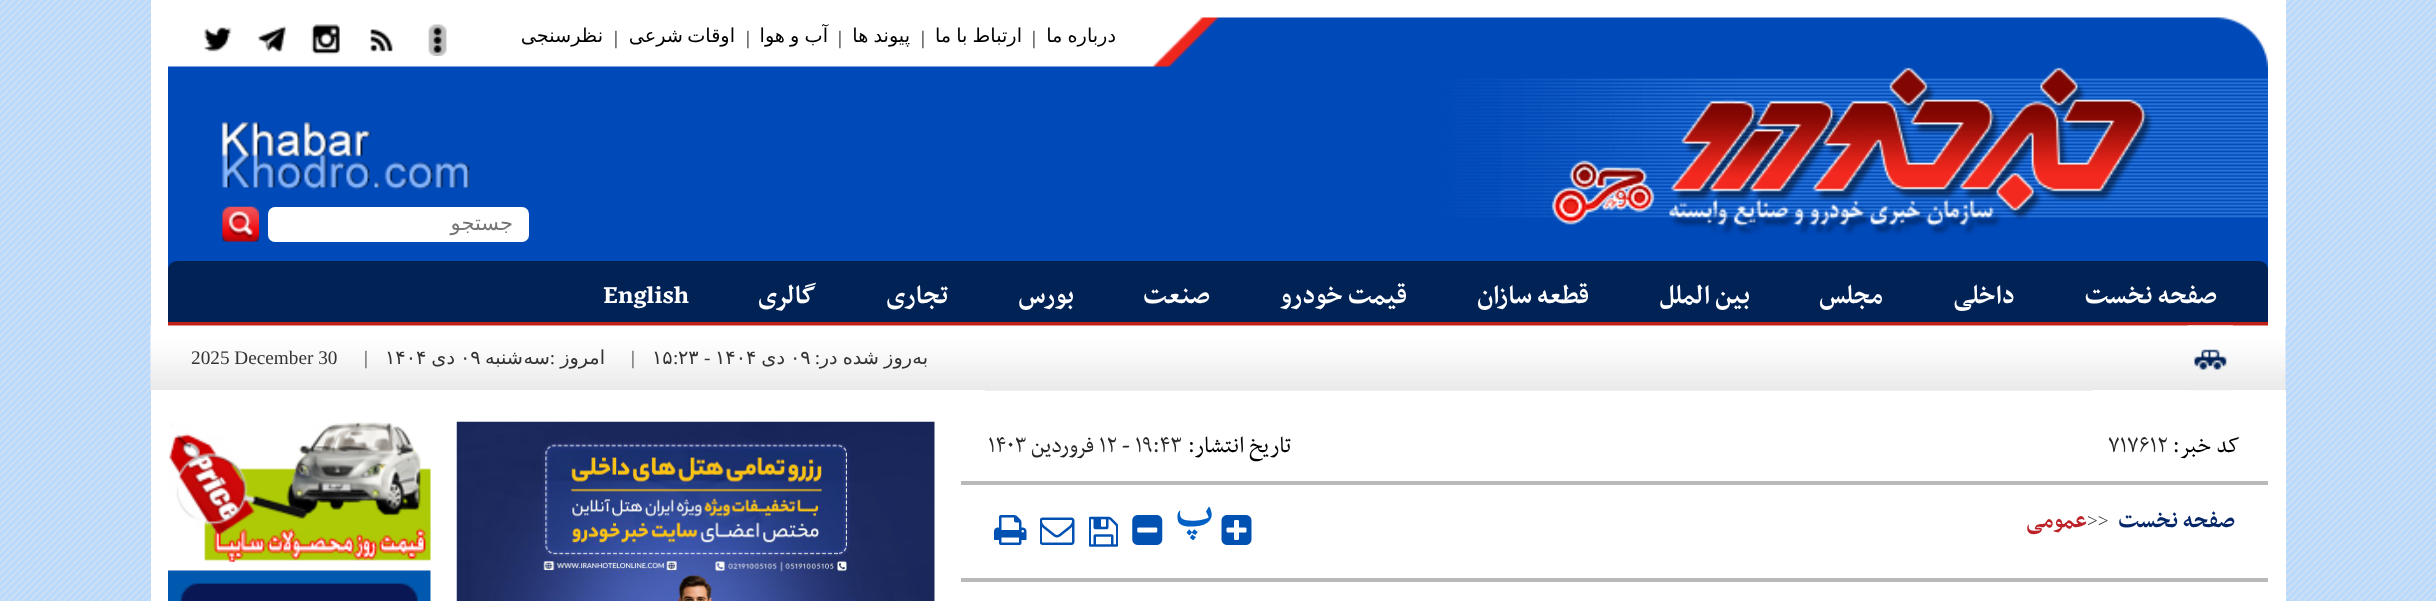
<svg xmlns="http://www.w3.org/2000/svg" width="2436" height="601">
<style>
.a{font:19.25px DejaVu Sans;direction:rtl;fill:#000}
.b{font:19.25px Liberation Serif;fill:#000}
.c{font:21px DejaVu Sans;direction:rtl;fill:#757575}
.d{font:bold 29.75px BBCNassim;direction:rtl;fill:#fff}
.e{font:bold 29.75px BBCNassim;fill:#fff}
.f{font:19.25px DejaVu Sans;direction:rtl;fill:#333}
.g{font:19.25px Liberation Serif;direction:rtl;fill:#333}
.h{font:19.25px DejaVu Sans;fill:#333}
.i{font:19.25px Liberation Serif;fill:#333}
.j{font:26.25px BBCNassim;direction:rtl;fill:#000}
.k{font:26.25px BBCNassim;fill:#272727}
.l{font:26.25px BBCNassim;direction:rtl;fill:#272727}
.m{font:bold 26.25px BBCNassim;direction:rtl;fill:#032668}
.n{font:bold 26.25px BBCNassim;direction:rtl;fill:#bc2328}
.o{font:bold 46px BBCNassim;direction:rtl;fill:#0060c4}
</style>
<rect width="100%" height="100%" fill="#fff"/>
<image href="1.png" x="0" y="0" width="2436" height="601"/>
<path fill="#fff" d="M151 0h2135v326H151z"/>
<image href="2.png" x="168" y="17" width="2100" height="253"/>
<image href="3.png" x="428" y="24" width="19" height="32"/>
<image href="4.png" x="370" y="29" width="23" height="23"/>
<image href="5.png" x="311" y="24" width="29" height="31"/>
<image href="6.png" x="257" y="26" width="29" height="27"/>
<image href="7.png" x="204" y="27" width="28" height="25"/>
<rect fill="#fff" x="268" y="207" width="261" height="35" rx="7"/>
<image href="8.png" x="222" y="206" width="37" height="36"/>
<path fill="#012255" d="M177 261h2082c5 0 9 4 9 9v56h-2100v-56c0-5 4-9 9-9z"/>
<path fill="#c12018" d="M168 322h2100v4H168z"/>
<image href="9.png" x="150" y="325" width="2136" height="66"/>
<path fill="#fff" d="M151 390h2135v211H151z"/>
<image href="10.png" x="2187" y="325" width="46" height="66"/>
<image href="11.png" x="985" y="390" width="1108" height="1"/>
<path fill="#b9b9b9" d="M961 481h1307v4H961z"/>
<path fill="#b9b9b9" d="M961 578h1307v4H961z"/>
<image href="12.png" x="1221" y="515" width="31" height="30"/>
<image href="13.png" x="1132" y="515" width="31" height="30"/>
<image href="14.png" x="1089" y="516" width="29" height="31"/>
<image href="15.png" x="1040" y="517" width="35" height="28"/>
<image href="16.png" x="994" y="515" width="33" height="30"/>
<image href="17.png" x="456" y="421" width="479" height="180"/>
<image href="18.png" x="169" y="421" width="262" height="141"/>
<image href="19.png" x="168" y="570" width="263" height="31"/>
<text class="a" x="1116" y="42" word-spacing="-1">درباره ما</text>
<text class="b" x="1032" y="44">|</text>
<text class="a" x="1022" y="42" word-spacing="-1">ارتباط با ما</text>
<text class="b" x="921" y="44">|</text>
<text class="a" x="910" y="42" word-spacing="-1">پیوند ها</text>
<text class="b" x="838" y="44">|</text>
<text class="a" x="828" y="42" word-spacing="-1">آب و هوا</text>
<text class="b" x="746" y="44">|</text>
<text class="a" x="735" y="42">اوقات</text>
<text class="a" x="683" y="42">شرعی</text>
<text class="b" x="614" y="44">|</text>
<text class="a" x="603" y="42">نظرسنجی</text>
<text class="c" x="513" y="230">جستجو</text>
<text class="d" x="2217" y="303">صفحه نخست</text>
<text class="d" x="2015" y="303">داخلی</text>
<text class="d" x="1883" y="303">مجلس</text>
<text class="d" x="1750" y="303">بین الملل</text>
<text class="d" x="1589" y="303">قطعه سازان</text>
<text class="d" x="1407" y="303">قیمت خودرو</text>
<text class="d" x="1210" y="303">صنعت</text>
<text class="d" x="1074" y="303">بورس</text>
<text class="d" x="948" y="303">تجاری</text>
<text class="d" x="816" y="303">گالری</text>
<text class="e" x="603" y="303">English</text>
<text class="f" x="928" y="364">به</text>
<text class="g" x="820" y="364">:</text>
<text class="f" x="912" y="364" word-spacing="-1">روز شده در</text>
<text class="h" x="790" y="364">۰۹</text>
<text class="f" x="785" y="364">دی</text>
<text class="h" x="715" y="364">۱۴۰۴</text>
<text class="i" x="704" y="364">-</text>
<text class="h" x="678" y="364">۲۳</text>
<text class="i" x="673" y="364">:</text>
<text class="h" x="652" y="364">۱۵</text>
<text class="i" x="631" y="364">|</text>
<text class="f" x="605" y="364">امروز</text>
<text class="g" x="555" y="364">:</text>
<text class="f" x="550" y="364">سه</text>
<text class="f" x="523" y="364">شنبه</text>
<text class="h" x="460" y="364">۰۹</text>
<text class="f" x="455" y="364">دی</text>
<text class="h" x="385" y="364">۱۴۰۴</text>
<text class="i" x="364" y="364">|</text>
<text class="i" x="191" y="364">2025 December 30</text>
<text class="j" x="2240" y="452">کد خبر:</text>
<text class="k" x="2108" y="452">۷۱۷۶۱۲</text>
<text class="j" x="1291" y="452">تاریخ انتشار:</text>
<text class="k" x="1099" y="452">۱۲ - ۱۹:۴۳</text>
<text class="l" x="1094" y="452">فروردين</text>
<text class="k" x="988" y="452">۱۴۰۳</text>
<text class="m" x="2235" y="527">صفحه نخست</text>
<text class="i" x="2087" y="527">&gt;&gt;</text>
<text class="n" x="2087" y="527">عمومی</text>
<text class="o" x="1213" y="525">پ</text>
</svg>
